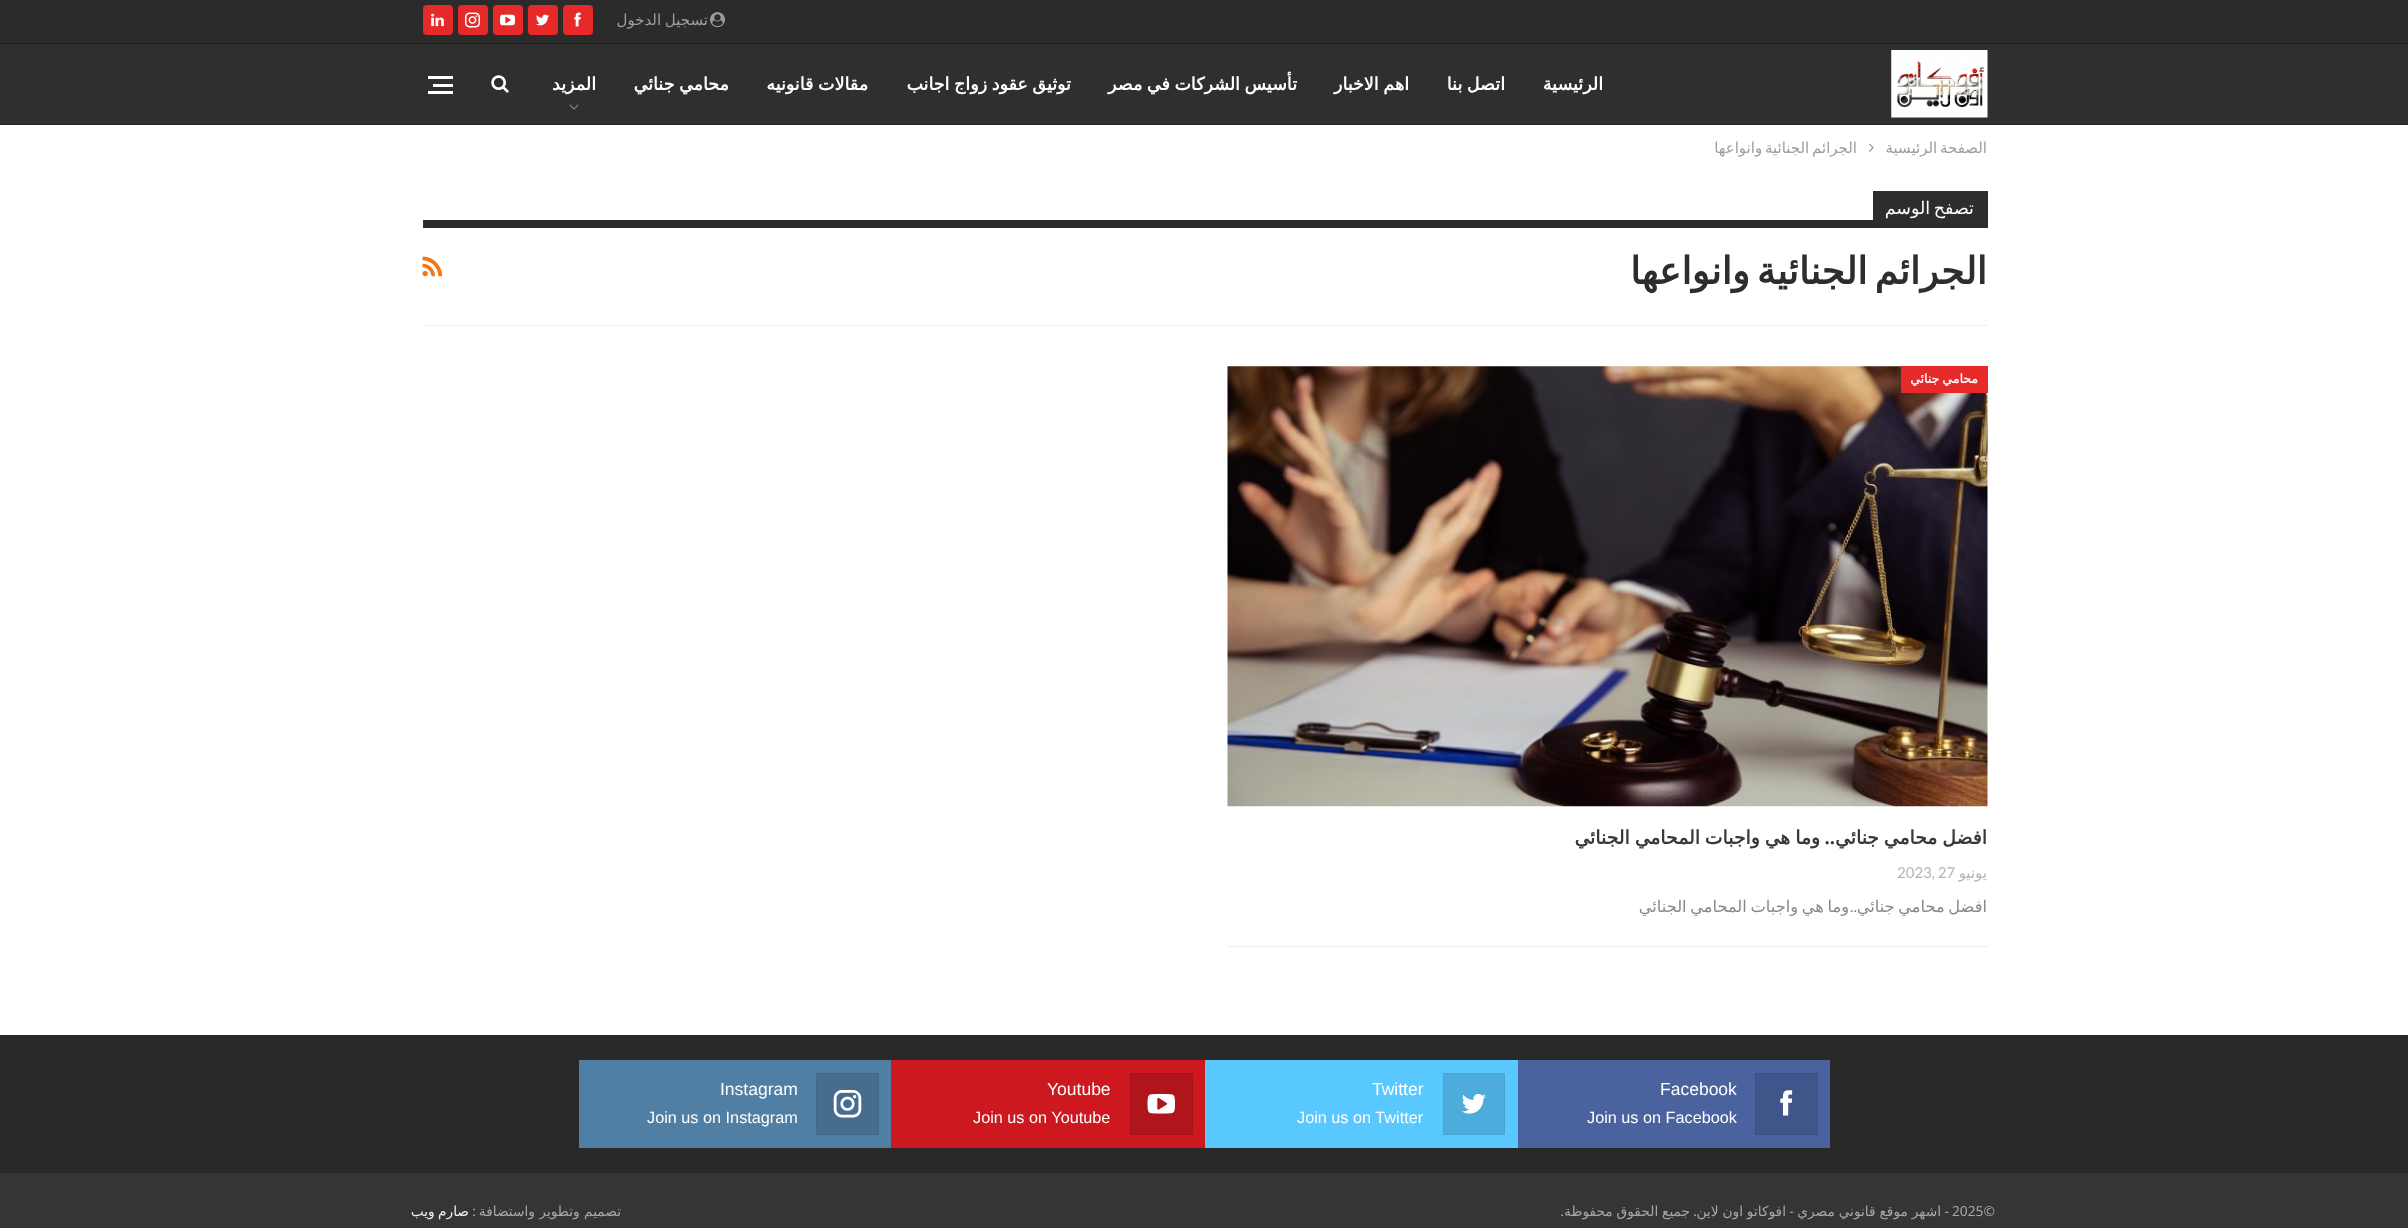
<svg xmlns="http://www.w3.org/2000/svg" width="2408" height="1228">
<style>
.a{font:15px DejaVu Sans;direction:rtl;fill:#9e9e9e}
.b{font:bold 17.5px DejaVu Sans;direction:rtl;fill:#fff}
.c{font:17.5px DejaVu Sans;direction:rtl;fill:#fff}
.d{font:bold 37.5px DejaVu Sans;direction:rtl;fill:#2d2d2d}
.e{font:bold 12.5px DejaVu Sans;direction:rtl;fill:#fff}
.f{font:bold 18.75px DejaVu Sans;direction:rtl;fill:#383838}
.g{font:bold 18.75px Noto Sans;direction:rtl;fill:#383838}
.h{font:15px DejaVu Sans;direction:rtl;fill:#adb5bd}
.i{font:15px Lato;fill:#adb5bd}
.j{font:16.25px DejaVu Sans;direction:rtl;fill:#888}
.k{font:16.25px Lato;direction:rtl;fill:#888}
.l{font:17.5px Liberation Sans;fill:#fff}
.m{font:16.25px Liberation Sans;fill:#fff}
.n{font:13.75px Noto Sans;fill:#a8a8a8}
.o{font:13.75px Noto Sans;direction:rtl;fill:#a8a8a8}
.p{font:13.75px DejaVu Sans;direction:rtl;fill:#a8a8a8}
.q{font:13.75px DejaVu Sans;direction:rtl;fill:#f3f3f3}
</style>
<rect width="100%" height="100%" fill="#fff"/>
<path fill="#2f2f2f" d="M0 44h2408v80H0z"/>
<path fill="#232323" d="M0 124h2408v1H0z"/>
<path fill="#2b2b2b" d="M0 0h2408v43H0z"/>
<path fill="#1d1d1d" d="M0 43h2408v1H0z"/>
<image href="1.png" x="710" y="12" width="15" height="16"/>
<path fill="#252525" d="M605 10h1v23H605z"/>
<rect fill="#e62929" x="563" y="5" width="30" height="30" rx="4"/>
<image href="2.png" x="574" y="12" width="7" height="15"/>
<rect fill="#e62929" x="528" y="5" width="30" height="30" rx="4"/>
<image href="3.png" x="536" y="14" width="13" height="12"/>
<rect fill="#e62929" x="493" y="5" width="30" height="30" rx="4"/>
<image href="4.png" x="500" y="14" width="15" height="12"/>
<rect fill="#e62929" x="458" y="5" width="30" height="30" rx="4"/>
<image href="5.png" x="465" y="12" width="15" height="16"/>
<rect fill="#e62929" x="423" y="5" width="30" height="30" rx="4"/>
<image href="6.png" x="431" y="13" width="13" height="14"/>
<image href="7.png" x="1891" y="50" width="97" height="68"/>
<image href="8.png" x="569" y="104" width="10" height="6"/>
<image href="9.png" x="491" y="75" width="18" height="18"/>
<path fill="#fff" d="M433 84h20v3H433z"/>
<path fill="#fff" d="M428 76h25v3H428z"/>
<path fill="#fff" d="M428 91h25v3H428z"/>
<image href="10.png" x="1868" y="143" width="6" height="9"/>
<path fill="#f0f0f0" d="M423 325h1565v1H423z"/>
<path fill="#2d2d2d" d="M1873 191h115v29H1873z"/>
<path fill="#2d2d2d" d="M423 220h1565v8H423z"/>
<image href="11.png" x="422" y="256" width="21" height="21"/>
<image href="12.png" x="1227" y="366" width="761" height="441"/>
<path fill="#e62929" d="M1901 366h87v27H1901z"/>
<path fill="#ededed" d="M1228 946h760v1H1228z"/>
<path fill="#292929" d="M0 1035h2408v138H0z"/>
<path fill="#4a639f" d="M1518 1060h312v88H1518z"/>
<path fill="#405589" stroke="#3d5182" d="M1755.5 1073.5h62v61H1755.5z"/>
<image href="13.png" x="1780" y="1090" width="13" height="26"/>
<path fill="#59c8ff" d="M1205 1060h313v88H1205z"/>
<path fill="#4dacdb" stroke="#49a3d0" d="M1443.5 1073.5h61v61H1443.5z"/>
<image href="14.png" x="1461" y="1093" width="25" height="21"/>
<path fill="#cc181e" d="M891 1060h314v88H891z"/>
<path fill="#af151a" stroke="#a61419" d="M1130.5 1073.5h62v61H1130.5z"/>
<image href="15.png" x="1147" y="1093" width="28" height="21"/>
<path fill="#517fa4" d="M579 1060h312v88H579z"/>
<path fill="#466d8d" stroke="#436886" d="M816.5 1073.5h62v61H816.5z"/>
<image href="16.png" x="833" y="1090" width="29" height="28"/>
<path fill="#353535" d="M0 1173h2408v55H0z"/>
<text class="a" x="708" y="25" word-spacing="-1">تسجيل الدخول</text>
<text class="b" x="1603" y="90">الرئيسية</text>
<text class="b" x="1505" y="90" word-spacing="-1">اتصل بنا</text>
<text class="b" x="1409" y="90" word-spacing="-1">اهم الاخبار</text>
<text class="b" x="1297" y="90" word-spacing="-1">تأسيس الشركات في مصر</text>
<text class="b" x="1071" y="90" word-spacing="-1">توثيق عقود زواج اجانب</text>
<text class="b" x="868" y="90" word-spacing="-1">مقالات قانونيه</text>
<text class="b" x="729" y="90" word-spacing="-1">محامي جنائي</text>
<text class="b" x="596" y="90">المزيد</text>
<text class="a" x="1987" y="153" word-spacing="-2">الصفحة الرئيسية</text>
<text class="a" x="1857" y="153" word-spacing="-2">الجرائم الجنائية وانواعها</text>
<text class="c" x="1974" y="214" word-spacing="-2">تصفح الوسم</text>
<text class="d" x="1987" y="284" word-spacing="-5">الجرائم الجنائية وانواعها</text>
<text class="e" x="1978" y="383" word-spacing="-1">محامي جنائي</text>
<text class="f" x="1987" y="844" word-spacing="-1">افضل محامي جنائي</text>
<text class="g" x="1835" y="844">..</text>
<text class="f" x="1820" y="844" word-spacing="-1">وما هي واجبات المحامي الجنائي</text>
<text class="h" x="1987" y="878">يونيو</text>
<text class="i" x="1897" y="878">2023, 27</text>
<text class="j" x="1987" y="912" word-spacing="-1.5">افضل محامي جنائي</text>
<text class="j" x="1849" y="912" word-spacing="-1.5">وما هي واجبات المحامي الجنائي</text>
<text class="k" x="1857" y="912">..</text>
<text class="l" x="1660" y="1095">Facebook</text>
<text class="m" x="1587" y="1123">Join us on Facebook</text>
<text class="l" x="1372" y="1095">Twitter</text>
<text class="m" x="1297" y="1123">Join us on Twitter</text>
<text class="l" x="1047" y="1095">Youtube</text>
<text class="m" x="973" y="1123">Join us on Youtube</text>
<text class="l" x="720" y="1095">Instagram</text>
<text class="m" x="647" y="1123">Join us on Instagram</text>
<text class="n" x="1952" y="1216">2025©</text>
<text class="o" x="1949" y="1216">-</text>
<text class="p" x="1941" y="1216" word-spacing="-0.5">اشهر موقع قانوني مصري</text>
<text class="o" x="1794" y="1216">-</text>
<text class="p" x="1786" y="1216" word-spacing="-0.5">افوكاتو اون لاين</text>
<text class="p" x="1690" y="1216" word-spacing="-0.5">جميع الحقوق محفوظة</text>
<text class="o" x="1697" y="1216">.</text>
<text class="o" x="1564" y="1216">.</text>
<text class="p" x="621" y="1216">تصميم وتطوير واستضافة</text>
<text class="o" x="476" y="1216">:</text>
<text class="q" x="469" y="1216" word-spacing="-1">صارم ويب</text>
</svg>
